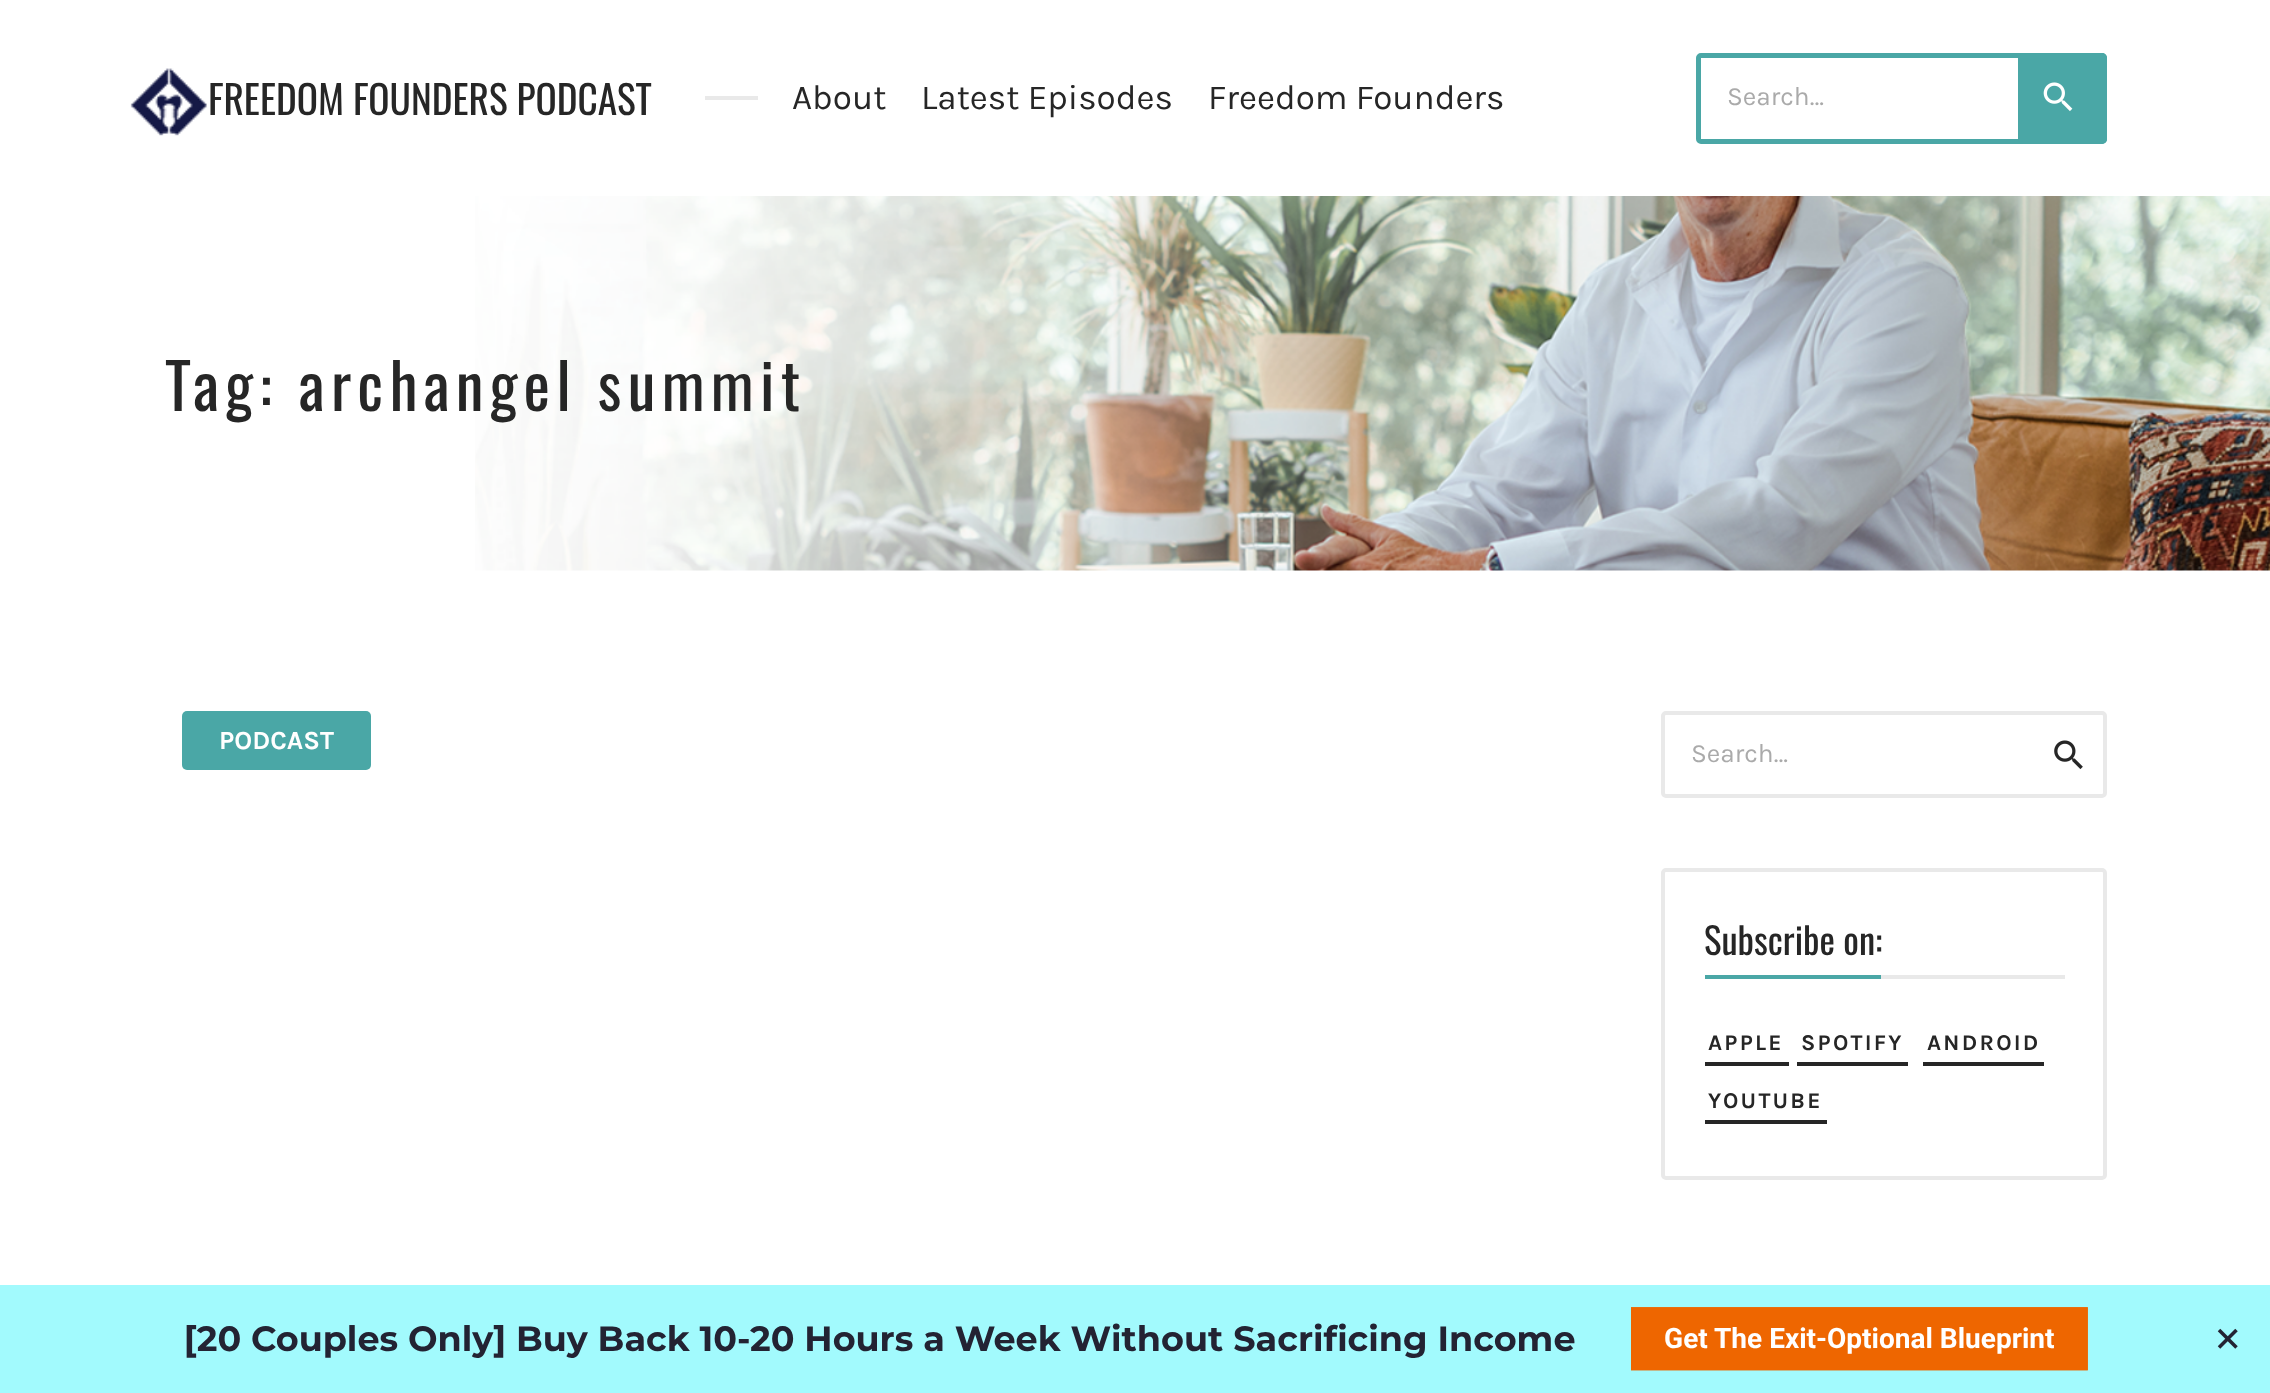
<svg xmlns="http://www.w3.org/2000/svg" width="2270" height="1393">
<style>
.a{font:39.4px Oswald;fill:#262626}
.b{font:35px Karla;fill:#262626}
.c{font:26.25px Karla;fill:#aaa}
.d{font:63px Oswald;letter-spacing:6.3px;fill:#262626}
.e{font:bold 26.25px Karla;fill:#fff}
.f{font:36.75px Oswald;fill:#262626}
.g{font:bold 22.5px Karla;letter-spacing:2.25px;fill:#262626}
</style>
<rect width="100%" height="100%" fill="#fff"/>
<image href="1.png" x="130" y="68" width="77" height="68"/>
<path fill="#e9e9e9" d="M705 96h53v4H705z"/>
<rect fill="none" stroke="#4aa7a6" stroke-width="5" x="1698.5" y="55.5" width="406" height="86" rx="2.5"/>
<rect fill="#4aa7a6" x="2018" y="53" width="89" height="91" rx="5"/>
<image href="2.png" x="2043" y="82" width="30" height="30"/>
<image href="3.png" x="475" y="196" width="1795" height="375"/>
<rect fill="#4aa7a6" x="182" y="711" width="189" height="59" rx="5"/>
<rect fill="none" stroke="#e9e9e9" stroke-width="4" x="1663" y="713" width="442" height="83" rx="3"/>
<image href="4.png" x="2054" y="740" width="29" height="30"/>
<rect fill="none" stroke="#e9e9e9" stroke-width="4" x="1663" y="870" width="442" height="308" rx="3"/>
<path fill="#e9e9e9" d="M1881 975h184v4H1881z"/>
<path fill="#4aa7a6" d="M1705 975h176v4H1705z"/>
<path fill="#262626" d="M1705 1062h84v4H1705z"/>
<path fill="#262626" d="M1797 1062h111v4H1797z"/>
<path fill="#262626" d="M1923 1062h121v4H1923z"/>
<path fill="#262626" d="M1705 1120h122v4H1705z"/>
<image href="5.png" x="0" y="1285" width="2270" height="108"/>
<text class="a" x="208" y="115">FREEDOM FOUNDERS PODCAST</text>
<text class="b" x="792" y="109">About</text>
<text class="b" x="921" y="109">Latest Episodes</text>
<text class="b" x="1208" y="109">Freedom Founders</text>
<text class="c" x="1727" y="105">Search…</text>
<text class="d" x="165" y="411">Tag: archangel summit</text>
<text class="e" x="219" y="749">PODCAST</text>
<text class="c" x="1691" y="762">Search…</text>
<text class="f" x="1704" y="955">Subscribe on:</text>
<text class="g" x="1708" y="1050">APPLE</text>
<text class="g" x="1801" y="1050">SPOTIFY</text>
<text class="g" x="1927" y="1050">ANDROID</text>
<text class="g" x="1708" y="1108">YOUTUBE</text>
</svg>
